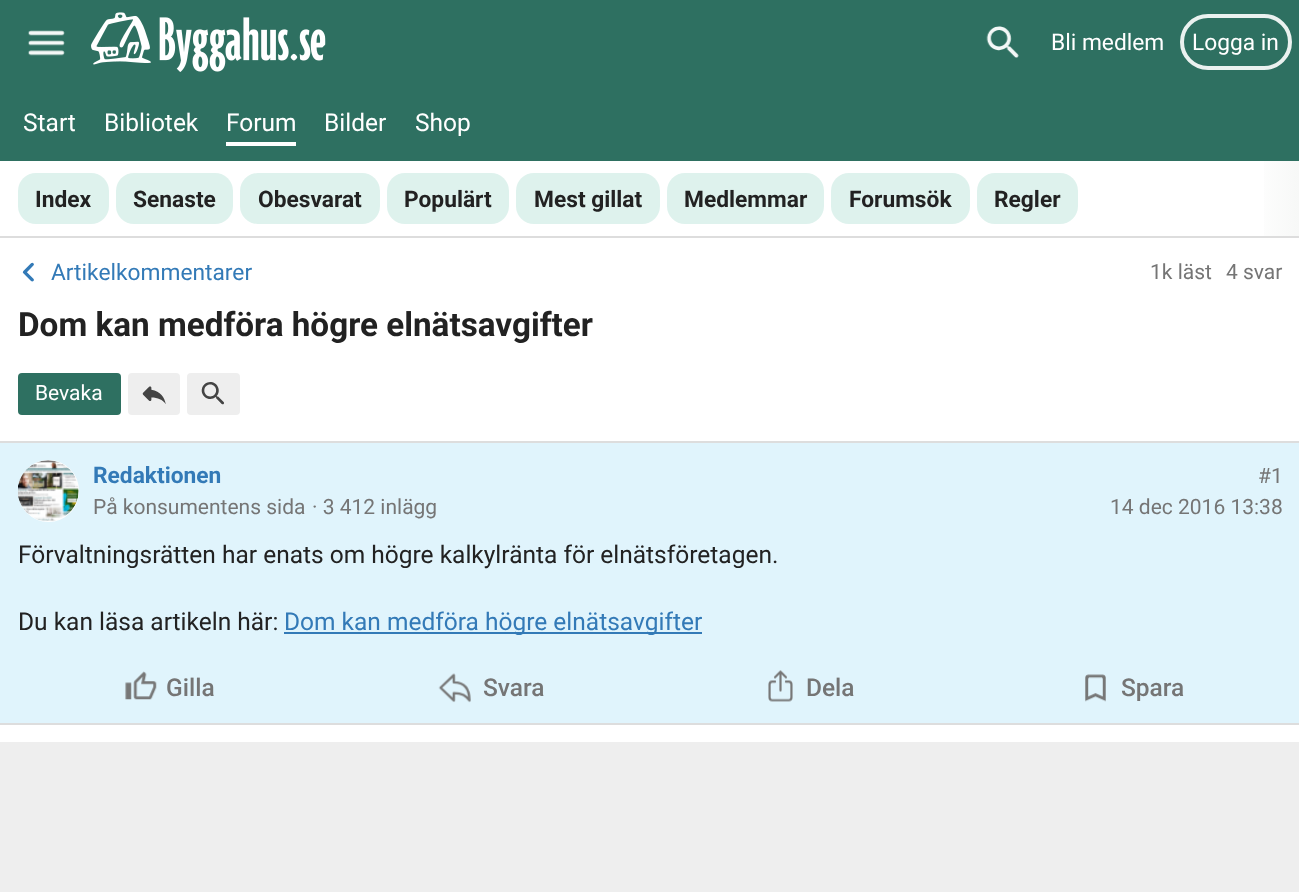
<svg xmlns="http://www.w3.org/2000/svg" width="1299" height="892">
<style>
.a{font:22.75px Roboto;fill:#fff}
.b{font:24.5px Roboto;fill:#fff}
.c{font:bold 22.75px Roboto;fill:#222}
.d{font:22.75px Roboto;fill:#337ab7}
.e{font:21px Roboto;fill:#757575}
.f{font:bold 33.25px Roboto;fill:#222}
.g{font:21px Roboto;fill:#fff}
.h{font:bold 22.75px Roboto;fill:#337ab7}
.i{font:24.5px Roboto;fill:#222}
.j{font:24.5px Roboto;fill:#337ab7}
.k{font:500 24.5px Roboto;fill:#757575}
</style>
<defs>
<linearGradient id="g1" gradientUnits="userSpaceOnUse" x1="1248" y1="225" x2="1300" y2="225"><stop offset="0" stop-color="#fff"/><stop offset="1" stop-color="#f7f8f7"/></linearGradient>
</defs>
<rect width="100%" height="100%" fill="#fff"/>
<path fill="#2e7061" d="M0 0h1299v161H0z"/>
<image href="1.png" x="28" y="30" width="37" height="26"/>
<image href="2.png" x="91" y="12" width="235" height="60"/>
<image href="3.png" x="986" y="26" width="33" height="32"/>
<rect fill="none" stroke="#eaf1ef" stroke-width="4" x="1182" y="16" width="108" height="52" rx="26"/>
<path fill="#fff" d="M226 142h70v4H226z"/>
<path fill="#ddd" d="M0 236h1299v2H0z"/>
<rect fill="#def2ed" x="18" y="173" width="91" height="51" rx="18"/>
<rect fill="#def2ed" x="116" y="173" width="117" height="51" rx="18"/>
<rect fill="#def2ed" x="240" y="173" width="140" height="51" rx="18"/>
<rect fill="#def2ed" x="387" y="173" width="122" height="51" rx="18"/>
<rect fill="#def2ed" x="516" y="173" width="144" height="51" rx="18"/>
<rect fill="#def2ed" x="667" y="173" width="157" height="51" rx="18"/>
<rect fill="#def2ed" x="831" y="173" width="139" height="51" rx="18"/>
<rect fill="#def2ed" x="977" y="173" width="101" height="51" rx="18"/>
<path fill="url(#g1)" d="M1264 161h35v75H1264z"/>
<image href="4.png" x="22" y="262" width="12" height="20"/>
<rect fill="#2e7061" x="18" y="373" width="103" height="42" rx="4"/>
<rect fill="#eee" x="128" y="373" width="52" height="42" rx="4"/>
<image href="5.png" x="142" y="386" width="24" height="18"/>
<rect fill="#eee" x="187" y="373" width="53" height="42" rx="4"/>
<image href="6.png" x="201" y="382" width="23" height="23"/>
<path fill="#ddd" d="M0 441h1299v2H0z"/>
<path fill="#e0f4fc" d="M0 443h1299v280H0z"/>
<rect fill="#fefefe" x="18" y="460" width="61" height="62" rx="30.5"/>
<image href="7.png" x="18" y="460" width="61" height="61"/>
<path fill="#337ab7" d="M284 632h418v2H284z"/>
<image href="8.png" x="125" y="671" width="32" height="29"/>
<image href="9.png" x="438" y="673" width="33" height="30"/>
<image href="10.png" x="768" y="670" width="25" height="32"/>
<image href="11.png" x="1085" y="674" width="21" height="28"/>
<path fill="#ddd" d="M0 723h1299v2H0z"/>
<path fill="#eee" d="M0 742h1299v150H0z"/>
<text class="a" x="1051" y="50">Bli medlem</text>
<text class="a" x="1192" y="50">Logga in</text>
<text class="b" x="23" y="131">Start</text>
<text class="b" x="104" y="131">Bibliotek</text>
<text class="b" x="226" y="131">Forum</text>
<text class="b" x="324" y="131">Bilder</text>
<text class="b" x="415" y="131">Shop</text>
<text class="c" x="35" y="207">Index</text>
<text class="c" x="133" y="207">Senaste</text>
<text class="c" x="258" y="207">Obesvarat</text>
<text class="c" x="404" y="207">Populärt</text>
<text class="c" x="534" y="207">Mest gillat</text>
<text class="c" x="684" y="207">Medlemmar</text>
<text class="c" x="849" y="207">Forumsök</text>
<text class="c" x="994" y="207">Regler</text>
<text class="d" x="51" y="280">Artikelkommentarer</text>
<text class="e" x="1150" y="279">1k läst</text>
<text class="e" x="1226" y="279">4 svar</text>
<text class="f" x="18" y="336">Dom kan medföra högre elnätsavgifter</text>
<text class="g" x="35" y="400">Bevaka</text>
<text class="h" x="93" y="483">Redaktionen</text>
<text class="e" x="1258" y="483">#1</text>
<text class="e" x="93" y="514">På konsumentens sida</text>
<text class="e" x="312" y="514">· 3 412 inlägg</text>
<text class="e" x="1110" y="514">14 dec 2016 13:38</text>
<text class="i" x="18" y="563">Förvaltningsrätten har enats om högre kalkylränta för elnätsföretagen.</text>
<text class="i" x="18" y="630">Du kan läsa artikeln här:</text>
<text class="j" x="284" y="630">Dom kan medföra högre elnätsavgifter</text>
<text class="k" x="166" y="696">Gilla</text>
<text class="k" x="483" y="696">Svara</text>
<text class="k" x="806" y="696">Dela</text>
<text class="k" x="1121" y="696">Spara</text>
</svg>
